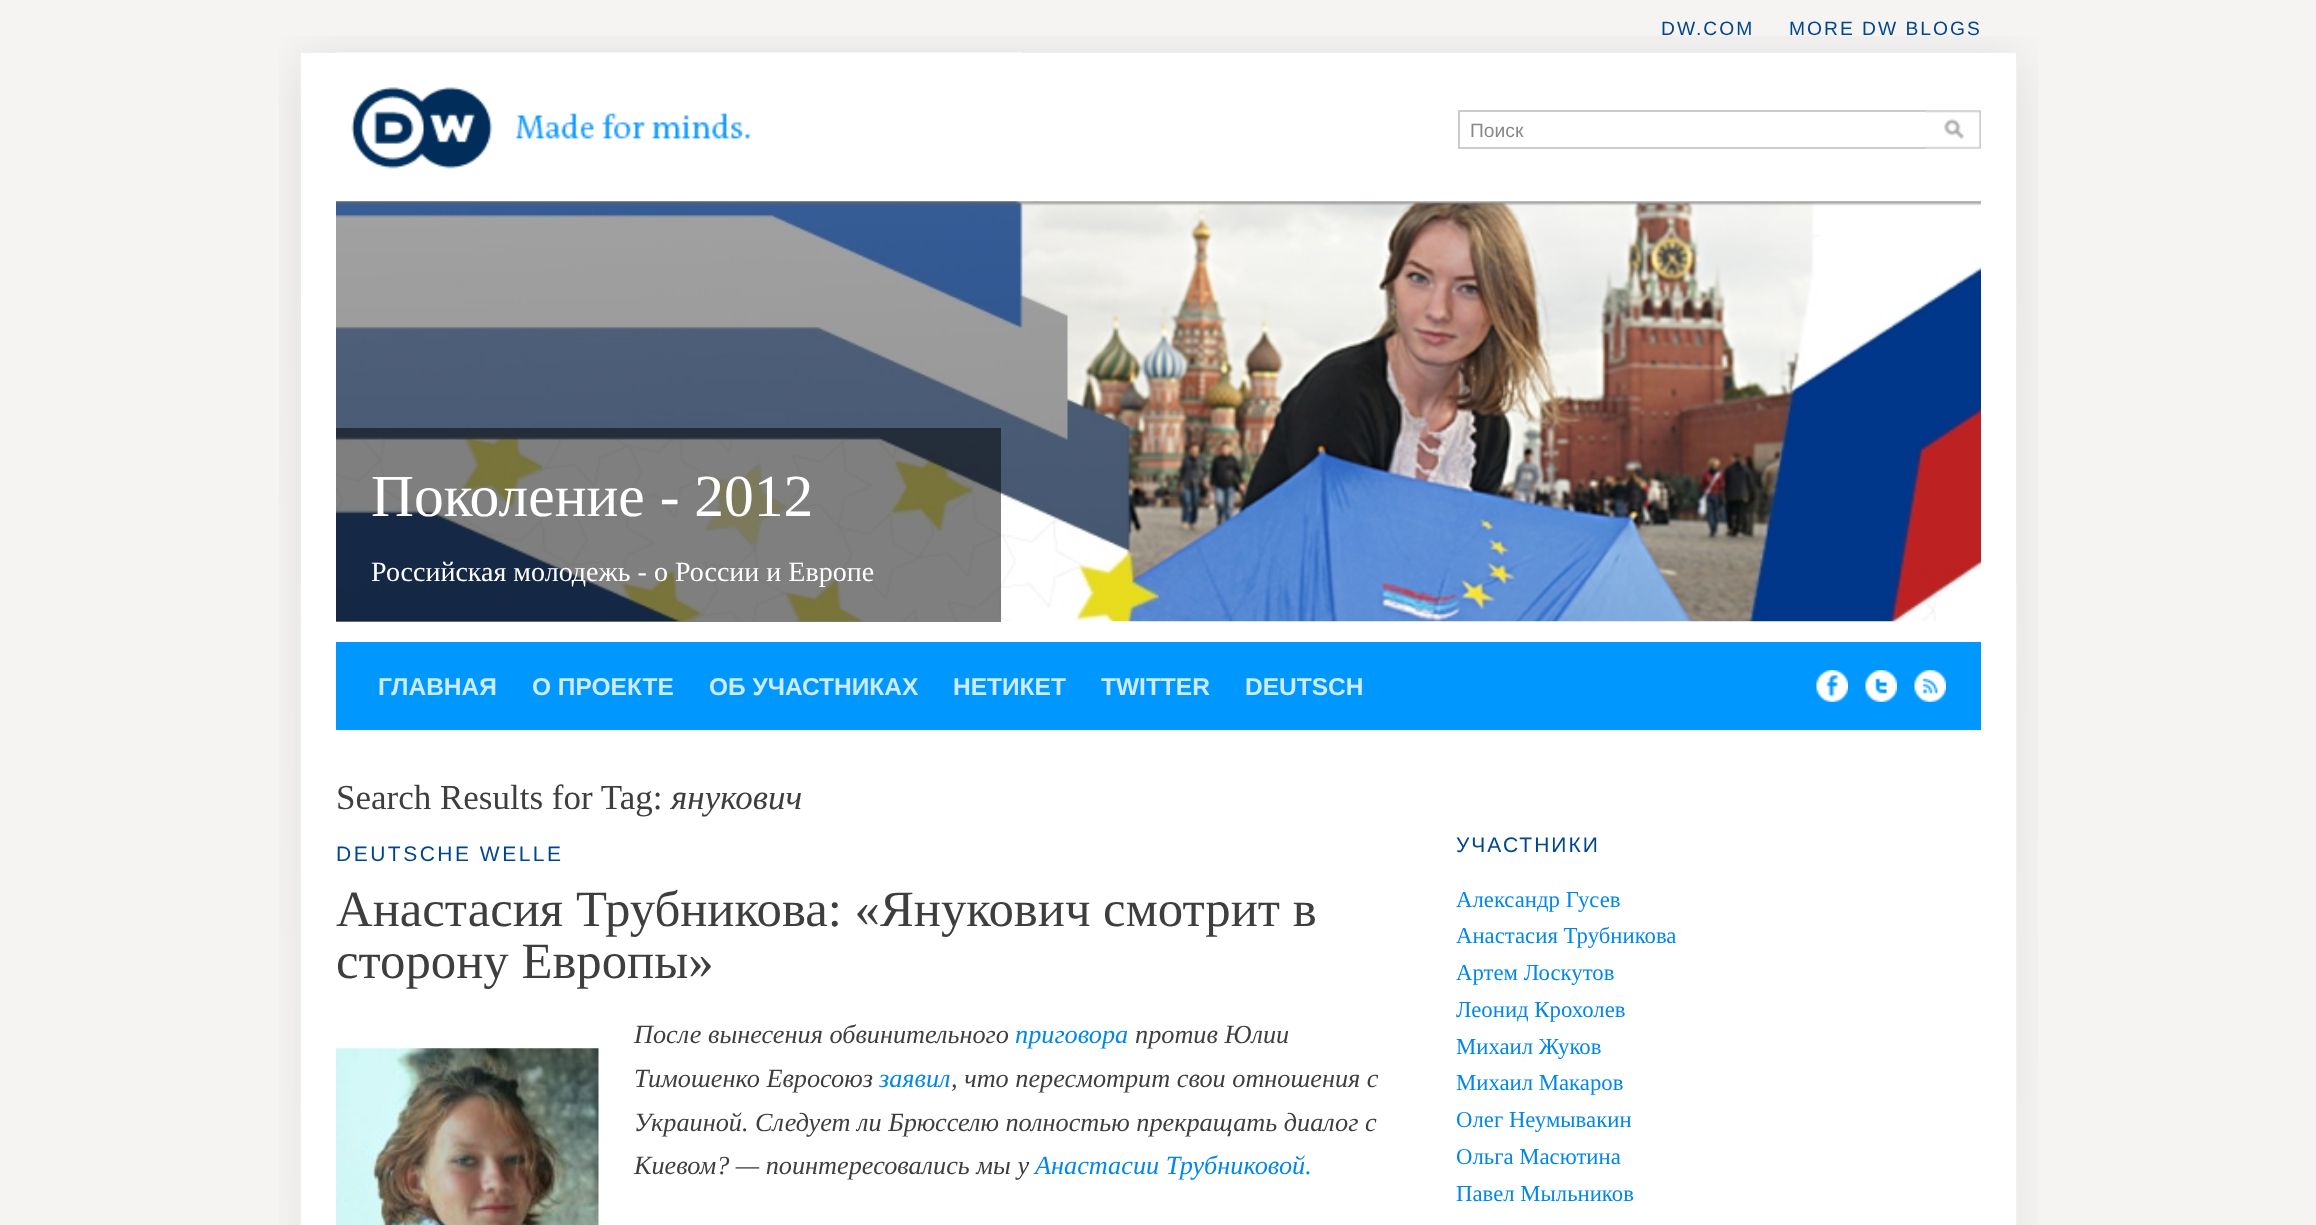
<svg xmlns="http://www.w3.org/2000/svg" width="2316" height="1225">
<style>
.a{font:19.25px Liberation Sans;letter-spacing:2px;fill:#00468f}
.b{font:19.25px Liberation Sans;fill:#888}
.c{font:59.5px Liberation Serif;fill:#fff}
.d{font:28px Liberation Serif;fill:#fff}
.e{font:bold 24.5px Liberation Sans;fill:#ccebff}
.f{font:35px Liberation Serif;fill:#3e3e3e}
.g{font:italic 35px Liberation Serif;fill:#3e3e3e}
.h{font:21px Liberation Sans;letter-spacing:2.5px;fill:#00468f}
.i{font:50.75px Liberation Serif;fill:#3e3e3e}
.j{font:italic 26.25px Liberation Serif;fill:#3e3e3e}
.k{font:italic 26.25px Liberation Serif;fill:#0087eb}
.l{font:21px Liberation Sans;letter-spacing:2px;fill:#00468f}
.m{font:22.75px Liberation Serif;fill:#0087eb}
</style>
<rect width="100%" height="100%" fill="#f5f4f2"/>
<image href="1.png" x="279" y="36" width="1759" height="1189"/>
<path fill="#fff" d="M301 53h1715v1172H301z"/>
<image href="2.png" x="336" y="52" width="686" height="117"/>
<path fill="#ccc" d="M1458 110h467v2H1458z"/>
<path fill="#ccc" d="M1458 147h467v2H1458z"/>
<path fill="#ccc" d="M1458 110h2v39H1458z"/>
<image href="3.png" x="1925" y="110" width="56" height="39"/>
<image href="4.png" x="336" y="201" width="1645" height="421"/>
<path fill="#00000080" d="M336 428h665v194H336z"/>
<path fill="#0098ff" d="M336 642h1645v88H336z"/>
<image href="5.png" x="1816" y="670" width="32" height="32"/>
<image href="6.png" x="1865" y="670" width="32" height="32"/>
<image href="7.png" x="1914" y="670" width="32" height="32"/>
<image href="8.png" x="336" y="1048" width="263" height="177"/>
<text class="a" x="1661" y="35">DW.COM</text>
<text class="a" x="1789" y="35">MORE DW BLOGS</text>
<text class="b" x="1470" y="137">Поиск</text>
<text class="c" x="371" y="516">Поколение - 2012</text>
<text class="d" x="371" y="581">Российская молодежь - о России и Европе</text>
<text class="e" x="378" y="695">ГЛАВНАЯ</text>
<text class="e" x="532" y="695">О ПРОЕКТЕ</text>
<text class="e" x="709" y="695">ОБ УЧАСТНИКАХ</text>
<text class="e" x="953" y="695">НЕТИКЕТ</text>
<text class="e" x="1101" y="695">TWITTER</text>
<text class="e" x="1245" y="695">DEUTSCH</text>
<text class="f" x="336" y="809">Search Results for Tag:</text>
<text class="g" x="671" y="809">янукович</text>
<text class="h" x="336" y="861">DEUTSCHE WELLE</text>
<text class="i" x="336" y="926">Анастасия Трубникова: «Янукович смотрит в</text>
<text class="i" x="336" y="978">сторону Европы»</text>
<text class="j" x="634" y="1043">После вынесения обвинительного</text>
<text class="k" x="1015" y="1043">приговора</text>
<text class="j" x="1135" y="1043">против Юлии</text>
<text class="j" x="634" y="1087">Тимошенко Евросоюз</text>
<text class="k" x="879" y="1087">заявил</text>
<text class="j" x="951" y="1087">, что пересмотрит свои отношения с</text>
<text class="j" x="634" y="1131">Украиной. Следует ли Брюсселю полностью прекращать диалог с</text>
<text class="j" x="634" y="1174">Киевом? — поинтересовались мы у</text>
<text class="k" x="1035" y="1174">Анастасии Трубниковой.</text>
<text class="l" x="1456" y="852">УЧАСТНИКИ</text>
<text class="m" x="1456" y="907">Александр Гусев</text>
<text class="m" x="1456" y="943">Анастасия Трубникова</text>
<text class="m" x="1456" y="980">Артем Лоскутов</text>
<text class="m" x="1456" y="1017">Леонид Крохолев</text>
<text class="m" x="1456" y="1054">Михаил Жуков</text>
<text class="m" x="1456" y="1090">Михаил Макаров</text>
<text class="m" x="1456" y="1127">Олег Неумывакин</text>
<text class="m" x="1456" y="1164">Ольга Масютина</text>
<text class="m" x="1456" y="1201">Павел Мыльников</text>
</svg>
